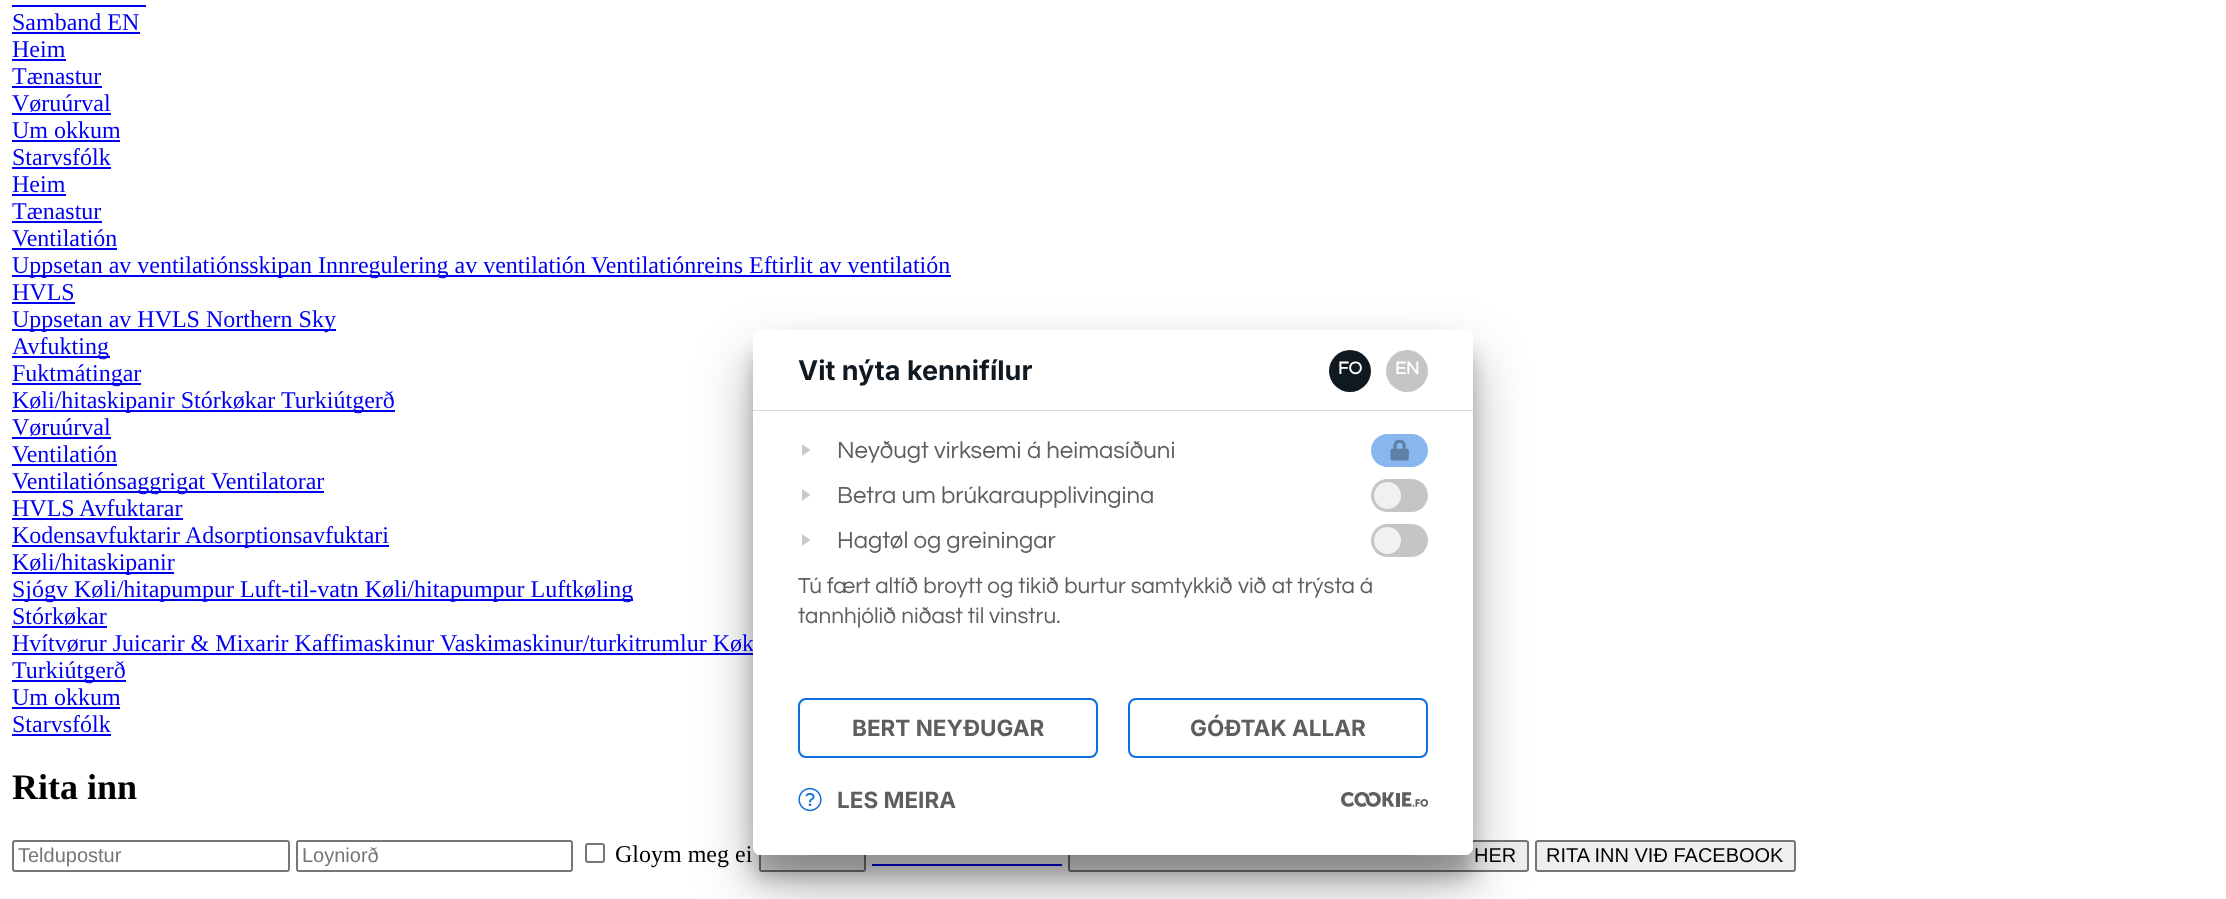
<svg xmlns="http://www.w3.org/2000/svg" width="2226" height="899">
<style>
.a{font:24px Liberation Serif;fill:#00e}
.b{font:bold 36px Liberation Serif;fill:#000}
.c{font:20px Liberation Sans;fill:#757575}
.d{font:24px Liberation Serif;fill:#000}
.e{font:20px Liberation Sans;fill:#000}
.f{font:bold 27px Inter;fill:#101820}
.g{font:bold 18px Questrial;fill:#fff}
.h{font:24px Questrial;fill:#5e5e5e}
.i{font:22.5px Questrial;fill:#5e5e5e}
.j{font:bold 22.5px Inter;fill:#5e5e5e}
</style>
<rect width="100%" height="100%" fill="#fff"/>
<path fill="#00e" d="M12 5h134v2H12z"/>
<path fill="#00e" d="M12 32h128v2H12z"/>
<path fill="#00e" d="M12 59h54v2H12z"/>
<path fill="#00e" d="M12 86h90v2H12z"/>
<path fill="#00e" d="M12 113h99v2H12z"/>
<path fill="#00e" d="M12 140h108v2H12z"/>
<path fill="#00e" d="M12 167h99v2H12z"/>
<path fill="#00e" d="M12 194h54v2H12z"/>
<path fill="#00e" d="M12 221h90v2H12z"/>
<path fill="#00e" d="M12 248h105v2H12z"/>
<path fill="#00e" d="M12 275h939v2H12z"/>
<path fill="#00e" d="M12 302h63v2H12z"/>
<path fill="#00e" d="M12 329h324v2H12z"/>
<path fill="#00e" d="M12 356h98v2H12z"/>
<path fill="#00e" d="M12 383h129v2H12z"/>
<path fill="#00e" d="M12 410h383v2H12z"/>
<path fill="#00e" d="M12 437h99v2H12z"/>
<path fill="#00e" d="M12 464h105v2H12z"/>
<path fill="#00e" d="M12 491h312v2H12z"/>
<path fill="#00e" d="M12 518h171v2H12z"/>
<path fill="#00e" d="M12 545h377v2H12z"/>
<path fill="#00e" d="M12 572h162v2H12z"/>
<path fill="#00e" d="M12 599h621v2H12z"/>
<path fill="#00e" d="M12 626h95v2H12z"/>
<path fill="#00e" d="M12 653h741v2H12z"/>
<path fill="#00e" d="M12 680h114v2H12z"/>
<path fill="#00e" d="M12 707h108v2H12z"/>
<path fill="#00e" d="M12 734h99v2H12z"/>
<rect fill="none" stroke="#767676" stroke-width="2" x="13" y="841" width="276" height="30" rx="2"/>
<rect fill="none" stroke="#767676" stroke-width="2" x="297" y="841" width="275" height="30" rx="2"/>
<rect fill="none" stroke="#767676" stroke-width="2" x="586" y="844" width="18" height="18" rx="2"/>
<rect fill="#efefef" stroke="#767676" stroke-width="2" x="760" y="841" width="105" height="30" rx="2"/>
<rect fill="#efefef" stroke="#767676" stroke-width="2" x="1069" y="841" width="459" height="30" rx="2"/>
<rect fill="#efefef" stroke="#767676" stroke-width="2" x="1536" y="841" width="259" height="30" rx="2"/>
<path fill="#00e" d="M872 864h190v2H872z"/>
<rect fill="#00000038" filter="blur(9px)" x="753" y="353" width="720" height="525" rx="8"/>
<rect fill="#0000004d" filter="blur(28.5px)" x="753" y="359" width="720" height="525" rx="8"/>
<text class="a" x="12" y="30">Samband EN</text>
<text class="a" x="12" y="57">Heim</text>
<text class="a" x="12" y="84">Tænastur</text>
<text class="a" x="12" y="111">Vøruúrval</text>
<text class="a" x="12" y="138">Um okkum</text>
<text class="a" x="12" y="165">Starvsfólk</text>
<text class="a" x="12" y="192">Heim</text>
<text class="a" x="12" y="219">Tænastur</text>
<text class="a" x="12" y="246">Ventilatión</text>
<text class="a" x="12" y="273">Uppsetan av ventilatiónsskipan Innregulering av ventilatión</text>
<text class="a" x="591" y="273">Ventilatiónreins Eftirlit av ventilatión</text>
<text class="a" x="12" y="300">HVLS</text>
<text class="a" x="12" y="327">Uppsetan av HVLS Northern Sky</text>
<text class="a" x="12" y="354">Avfukting</text>
<text class="a" x="12" y="381">Fuktmátingar</text>
<text class="a" x="12" y="408">Køli/hitaskipanir Stórkøkar</text>
<text class="a" x="281" y="408">Turkiútgerð</text>
<text class="a" x="12" y="435">Vøruúrval</text>
<text class="a" x="12" y="462">Ventilatión</text>
<text class="a" x="12" y="489">Ventilatiónsaggrigat</text>
<text class="a" x="211" y="489">Ventilatorar</text>
<text class="a" x="12" y="516">HVLS</text>
<text class="a" x="79" y="516">Avfuktarar</text>
<text class="a" x="12" y="543">Kodensavfuktarir</text>
<text class="a" x="185" y="543">Adsorptionsavfuktari</text>
<text class="a" x="12" y="570">Køli/hitaskipanir</text>
<text class="a" x="12" y="597">Sjógv Køli/hitapumpur Luft-til-vatn Køli/hitapumpur Luftkøling</text>
<text class="a" x="12" y="624">Stórkøkar</text>
<text class="a" x="12" y="651">Hvítvørur Juicarir &amp; Mixarir Kaffimaskinur</text>
<text class="a" x="440" y="651">Vaskimaskinur/turkitrumlur Køk</text>
<text class="a" x="12" y="678">Turkiútgerð</text>
<text class="a" x="12" y="705">Um okkum</text>
<text class="a" x="12" y="732">Starvsfólk</text>
<text class="b" x="12" y="799">Rita inn</text>
<text class="c" x="18" y="862">Teldupostur</text>
<text class="c" x="302" y="862">Loyniorð</text>
<text class="d" x="615" y="862">Gloym meg ei</text>
<text class="e" x="1474" y="862">HER</text>
<text class="e" x="1546" y="862">RITA INN VIÐ FACEBOOK</text>
<rect fill="#fff" x="753" y="330" width="720" height="525" rx="8"/>
<path fill="#d9d9d9" d="M753 410h720v1H753z"/>
<text class="f" x="798" y="380">Vit nýta kennifílur</text>
<circle fill="#101820" cx="1350" cy="371" r="21"/>
<text class="g" x="1338" y="374">FO</text>
<circle fill="#c6c5c5" cx="1407" cy="371" r="21"/>
<text class="g" x="1395" y="374">EN</text>
<path fill="#cacaca" d="M802 444l8.5 6l-8.5 6z"/>
<text class="h" x="837" y="458">Neyðugt virksemi á heimasíðuni</text>
<rect fill="#88b6ee" x="1371" y="434" width="57" height="33" rx="16.5"/>
<image href="1.png" x="1390" y="440" width="19" height="21"/>
<path fill="#cacaca" d="M802 489l8.5 6l-8.5 6z"/>
<text class="h" x="837" y="503">Betra um brúkaraupplivingina</text>
<rect fill="#c6c5c5" x="1371" y="479" width="57" height="33" rx="16.5"/>
<circle fill="#f1f1f1" cx="1387.5" cy="495.5" r="13.5"/>
<path fill="#cacaca" d="M802 534l8.5 6l-8.5 6z"/>
<text class="h" x="837" y="548">Hagtøl og greiningar</text>
<rect fill="#c6c5c5" x="1371" y="524" width="57" height="33" rx="16.5"/>
<circle fill="#f1f1f1" cx="1387.5" cy="540.5" r="13.5"/>
<text class="i" x="798" y="593">Tú fært altíð broytt og tikið burtur samtykkið við at trýsta á</text>
<text class="i" x="798" y="623">tannhjólið niðast til vinstru.</text>
<path fill="#fff" d="M753 686h720v161c0 4.5-3.5 8-8 8h-704c-4.5 0-8-3.5-8-8z"/>
<rect fill="none" stroke="#106ddc" stroke-width="2" x="799" y="699" width="298" height="58" rx="7"/>
<text class="j" x="852" y="736">BERT NEYÐUGAR</text>
<rect fill="none" stroke="#106ddc" stroke-width="2" x="1129" y="699" width="298" height="58" rx="7"/>
<text class="j" x="1190" y="736">GÓÐTAK ALLAR</text>
<image href="2.png" x="798" y="788" width="24" height="24"/>
<text class="j" x="837" y="808">LES MEIRA</text>
<image href="3.png" x="1341" y="792" width="87" height="15"/>
</svg>
